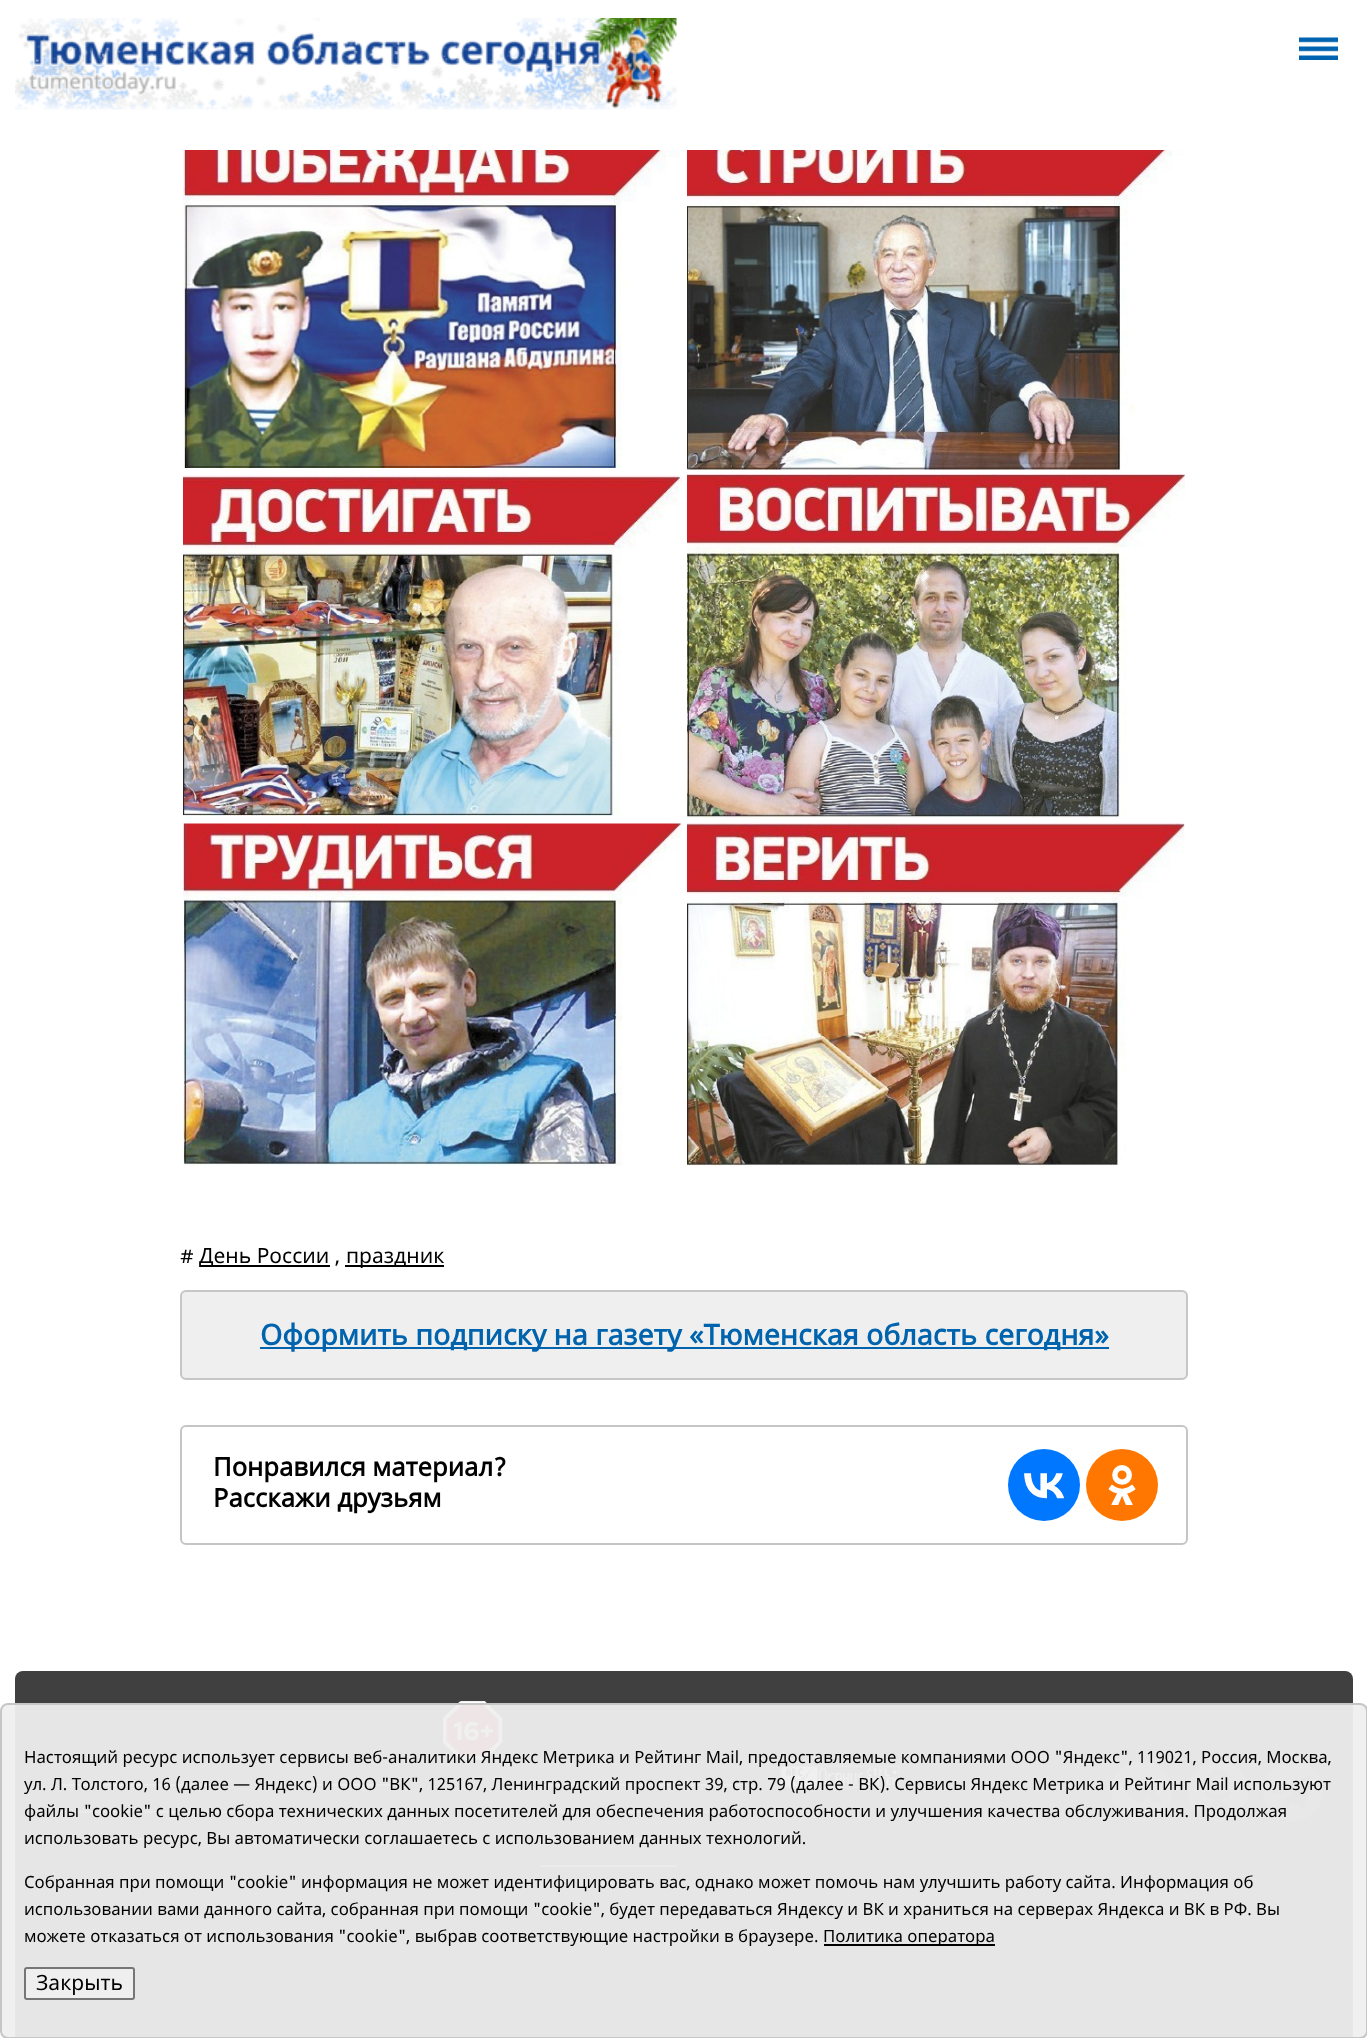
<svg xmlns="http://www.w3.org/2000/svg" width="1367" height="2038">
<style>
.a{font:21px Noto Sans;fill:#000}
.b{font:bold 28.5px Noto Sans;fill:#0063ad}
.c{font:bold 25.5px Noto Sans;fill:#000}
.d{font:16.8px Noto Sans;fill:#000}
</style>
<rect width="100%" height="100%" fill="#fff"/>
<image href="1.png" x="15" y="18" width="662" height="92"/>
<image href="2.png" x="1299" y="37" width="39" height="23"/>
<image href="3.png" x="183" y="150" width="500" height="318"/>
<image href="4.png" x="687" y="150" width="498" height="320"/>
<image href="5.png" x="183" y="475" width="500" height="341"/>
<image href="6.png" x="687" y="474" width="498" height="345"/>
<image href="7.png" x="183" y="823" width="500" height="343"/>
<image href="8.png" x="687" y="823" width="498" height="343"/>
<path fill="#000" d="M200 1265h130v2H200z"/>
<path fill="#000" d="M345 1265h99v2H345z"/>
<rect fill="#efefef" stroke="#c6c6c6" stroke-width="2" x="181" y="1291" width="1006" height="88" rx="5"/>
<path fill="#0063ad" d="M260 1347h849v2H260z"/>
<rect fill="none" stroke="#c5c5c5" stroke-width="2" x="181" y="1426" width="1006" height="118" rx="5"/>
<circle fill="#07f" cx="1044" cy="1485" r="36"/>
<image href="9.png" x="1024" y="1473" width="40" height="26"/>
<circle fill="#f70" cx="1122" cy="1485" r="36"/>
<image href="10.png" x="1108" y="1465" width="28" height="40"/>
<rect fill="#404040" x="15" y="1671" width="1338" height="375" rx="8"/>
<image href="11.png" x="443" y="1701" width="60" height="59"/>
<image href="12.png" x="780" y="1765" width="120" height="23"/>
<path fill="#a1a1a1" d="M60 1784h165v2H60z"/>
<path fill="#a1a1a1" d="M60 1811h195v2H60z"/>
<path fill="#a1a1a1" d="M60 1838h123v2H60z"/>
<path fill="#a1a1a1" d="M300 1784h95v2H300z"/>
<path fill="#a1a1a1" d="M300 1811h98v2H300z"/>
<path fill="#a1a1a1" d="M300 1838h101v2H300z"/>
<path fill="#a1a1a1" d="M540 1784h207v2H540z"/>
<path fill="#a1a1a1" d="M540 1811h179v2H540z"/>
<path fill="#a1a1a1" d="M540 1838h131v2H540z"/>
<path fill="#a1a1a1" d="M540 1865h137v2H540z"/>
<image href="13.png" x="1111" y="1761" width="61" height="60"/>
<image href="14.png" x="1188" y="1761" width="60" height="60"/>
<image href="15.png" x="1263" y="1761" width="60" height="60"/>
<rect fill="#efefeff2" stroke="#c6c6c6" stroke-width="2" x="1" y="1704" width="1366" height="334" rx="7"/>
<path fill="#000" d="M824 1944h171v2H824z"/>
<rect fill="#efefef" stroke="#767676" stroke-width="2" x="25" y="1968" width="109" height="31" rx="2"/>
<text class="a" x="180" y="1263">#</text>
<text class="a" x="199" y="1263">День России ,</text>
<text class="a" x="346" y="1263">праздник</text>
<text class="b" x="260" y="1345">Оформить подписку на газету «Тюменская область сегодня»</text>
<text class="c" x="213" y="1476">Понравился материал?</text>
<text class="c" x="213" y="1507">Расскажи друзьям</text>
<text class="d" x="24" y="1763">Настоящий ресурс использует сервисы веб-аналитики Яндекс Метрика и Рейтинг Mail, предоставляемые компаниями ООО "Яндекс", 119021, Россия, Москва,</text>
<text class="d" x="24" y="1790">ул. Л. Толстого, 16 (далее — Яндекс) и ООО "ВК", 125167, Ленинградский проспект 39, стр. 79 (далее - ВК). Сервисы Яндекс Метрика и Рейтинг Mail используют</text>
<text class="d" x="24" y="1817">файлы "cookie" с целью сбора технических данных посетителей для обеспечения работоспособности и улучшения качества обслуживания. Продолжая</text>
<text class="d" x="24" y="1844">использовать ресурс, Вы автоматически соглашаетесь с использованием данных технологий.</text>
<text class="d" x="24" y="1888">Собранная при помощи "cookie" информация не может идентифицировать вас, однако может помочь нам улучшить работу сайта. Информация об</text>
<text class="d" x="24" y="1915">использовании вами данного сайта, собранная при помощи "cookie", будет передаваться Яндексу и ВК и храниться на серверах Яндекса и ВК в РФ. Вы</text>
<text class="d" x="24" y="1942">можете отказаться от использования "cookie", выбрав соответствующие настройки в браузере.</text>
<text class="d" x="823" y="1942">Политика оператора</text>
<text class="a" x="36" y="1990">Закрыть</text>
</svg>
